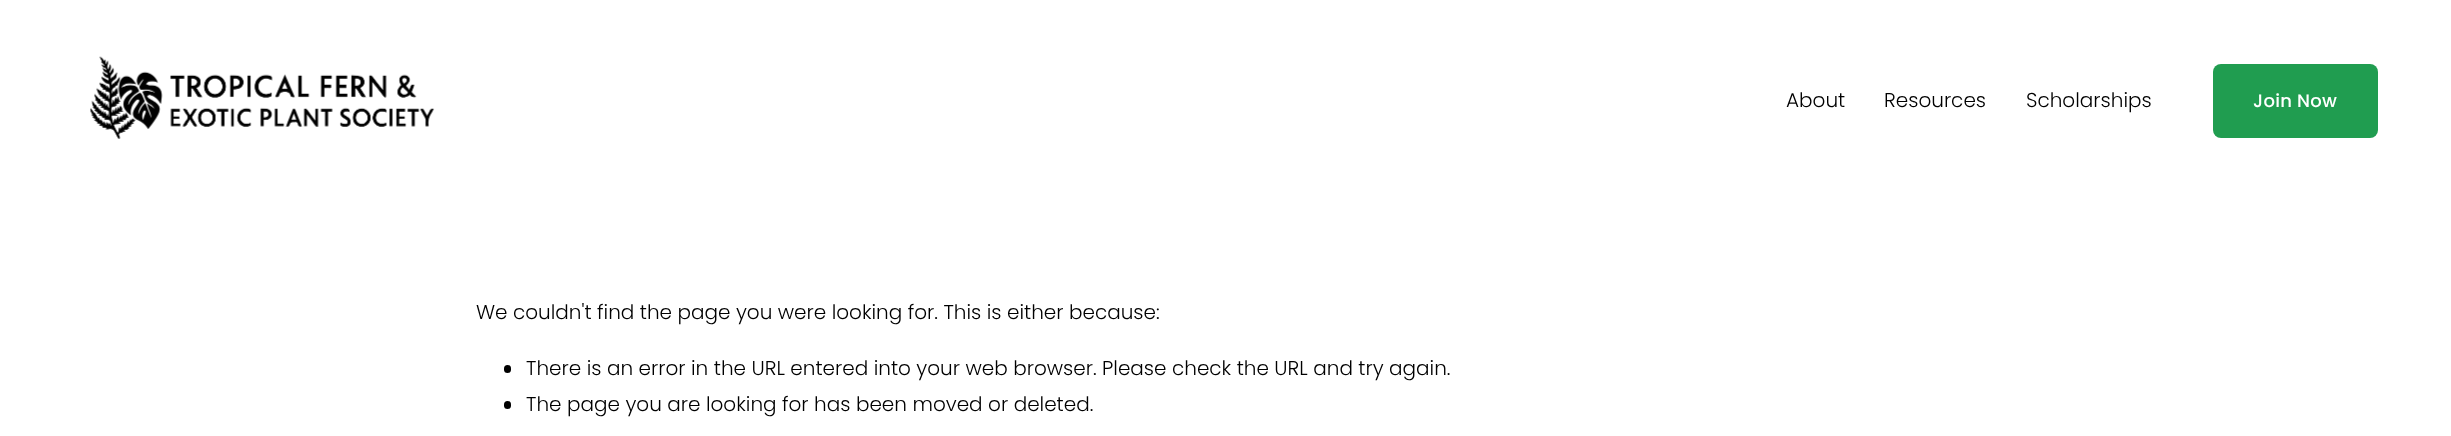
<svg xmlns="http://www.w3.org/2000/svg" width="2451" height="436">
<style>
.a{font:300 20px Poppins;fill:#000}
.b{font:500 18px Poppins;letter-spacing:0.25px;fill:#fff}
</style>
<rect width="100%" height="100%" fill="#fff"/>
<image href="1.png" x="90" y="56" width="345" height="83"/>
<rect fill="#209d50" x="2213" y="64" width="165" height="74" rx="8"/>
<rect fill="#000" x="504" y="365" width="7" height="8" rx="3.5"/>
<rect fill="#000" x="504" y="401" width="7" height="8" rx="3.5"/>
<text class="a" x="1786" y="107">About</text>
<text class="a" x="1884" y="107">Resources</text>
<text class="a" x="2026" y="107">Scholarships</text>
<text class="b" x="2253" y="107">Join Now</text>
<text class="a" x="476" y="319">We couldn't find the page you were looking for. This is either because:</text>
<text class="a" x="526" y="375">There is an error in the URL entered into your web browser. Please check the URL and try again.</text>
<text class="a" x="526" y="411">The page you are looking for has been moved or deleted.</text>
</svg>
